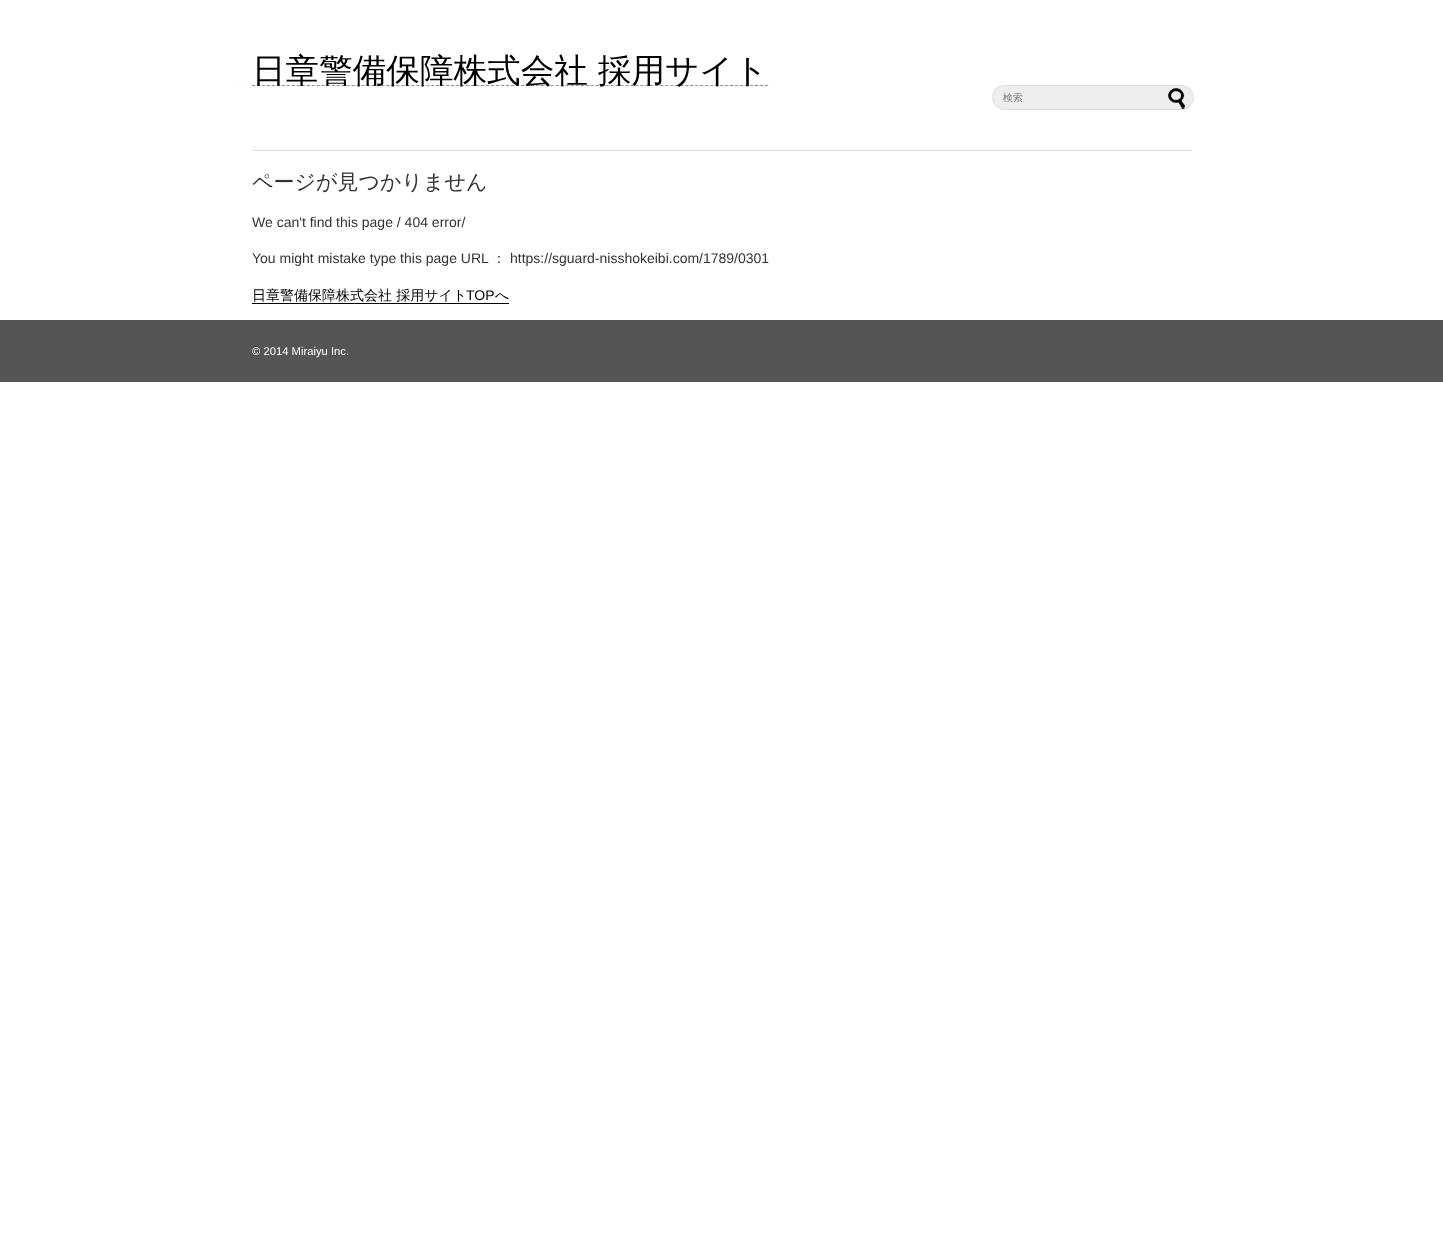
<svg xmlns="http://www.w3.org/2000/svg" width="1443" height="1248">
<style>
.a{font:500 33.6px WenQuanYi Zen Hei;fill:#000}
.b{font:500 10px WenQuanYi Zen Hei;fill:#757575}
.c{font:500 21px WenQuanYi Zen Hei;fill:#333}
.d{font:14px Liberation Sans;fill:#333}
.e{font:500 14px WenQuanYi Zen Hei;fill:#333}
.f{font:500 14px WenQuanYi Zen Hei;fill:#000}
.g{font:14px Liberation Sans;fill:#000}
.h{font:11.25px Liberation Sans;fill:#fff}
</style>
<rect width="100%" height="100%" fill="#fff"/>
<path fill="#ddd" d="M252 150h940v1H252z"/>
<path fill="none" stroke="#fe56aa" stroke-dasharray="3 1.98" d="M252 85.5h516"/>
<rect fill="#eee" stroke="#ddd" x="992.5" y="85.5" width="201" height="24" rx="12"/>
<image href="1.png" x="1168" y="88" width="17" height="21"/>
<path fill="#000" d="M252 303h257v1H252z"/>
<path fill="#555" d="M0 320h1443v62H0z"/>
<text class="a" x="252" y="82">日章警備保障株式会社 採用サイト</text>
<text class="b" x="1003" y="101">検索</text>
<text class="c" x="252" y="189">ページが見つかりません</text>
<text class="d" x="252" y="227">We can't find this page / 404 error/</text>
<text class="d" x="252" y="263">You might mistake type this page URL</text>
<text class="e" x="492" y="263">：</text>
<text class="d" x="510" y="263">https://sguard-nisshokeibi.com/1789/0301</text>
<text class="f" x="252" y="300">日章警備保障株式会社 採用サイト</text>
<text class="g" x="466" y="300">TOP</text>
<text class="f" x="495" y="300">へ</text>
<text class="h" x="252" y="355">© 2014 Miraiyu Inc.</text>
</svg>
